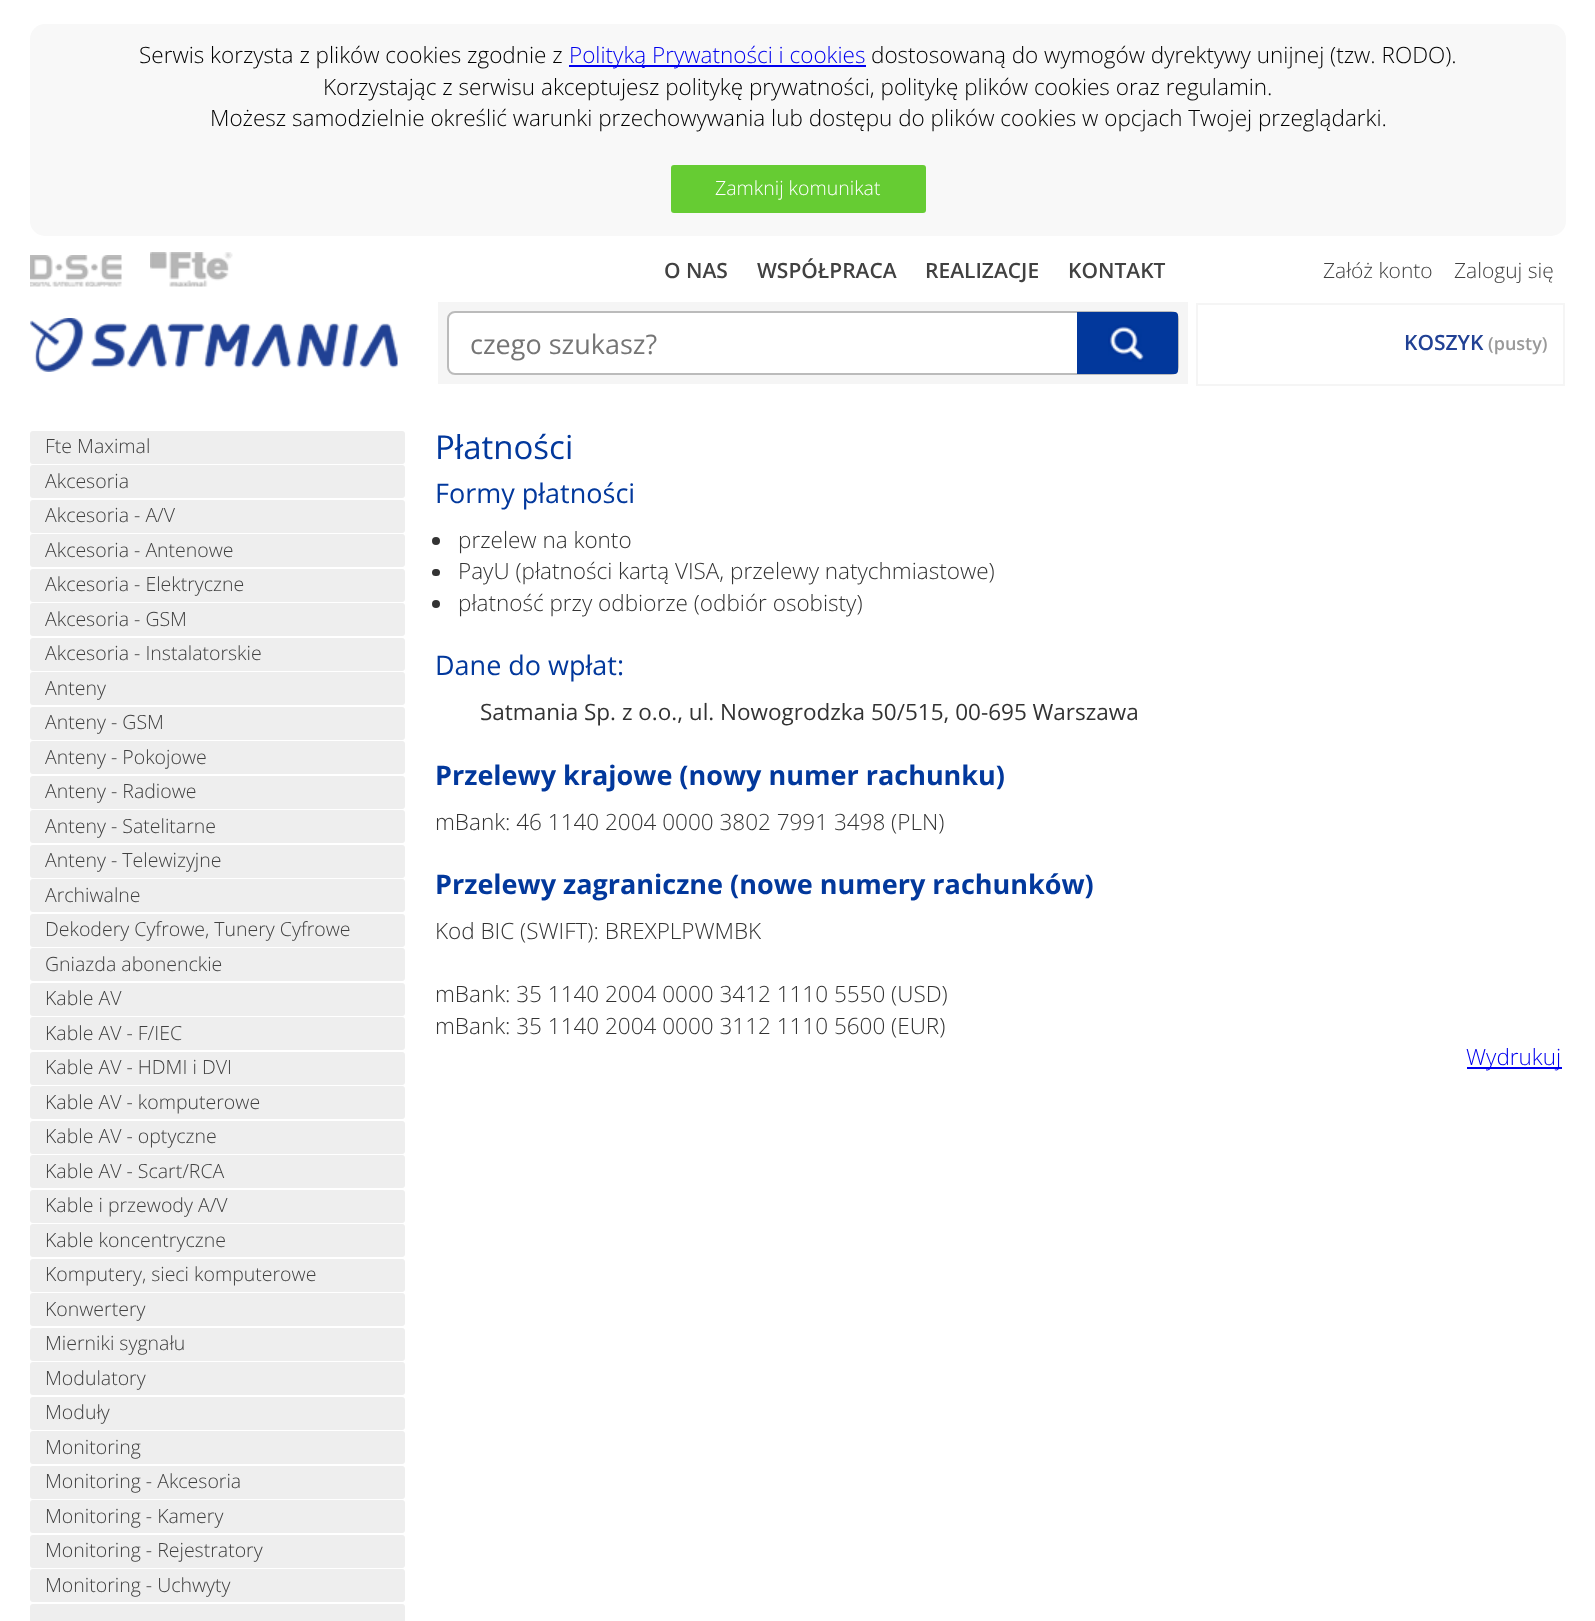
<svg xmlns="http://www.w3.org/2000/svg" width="1595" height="1621">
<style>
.a{font:300 22.5px Open Sans;fill:#000}
.b{font:300 22.5px Open Sans;fill:#00e}
.c{font:300 19.5px Open Sans;fill:#fff}
.d{font:600 21px Open Sans;fill:#414141}
.e{font:27px Open Sans;fill:#757575}
.f{font:300 21px Open Sans;fill:#414141}
.g{font:600 21px Open Sans;fill:#214194}
.h{font:600 18px Open Sans;fill:#999}
.i{font:300 19.5px Open Sans;fill:#414141}
.j{font:33px Open Sans;fill:#02389c}
.k{font:27px Open Sans;fill:#02389c}
.l{font:300 22.5px Open Sans;fill:#333}
.m{font:22.5px Open Sans;fill:#333}
.n{font:bold 27px Open Sans;fill:#02389c}
</style>
<rect width="100%" height="100%" fill="#fff"/>
<rect fill="#f8f8f8" x="30" y="24" width="1536" height="212" rx="15"/>
<path fill="#00e" d="M569 65h297v2H569z"/>
<rect fill="#6c3" x="671" y="165" width="255" height="48" rx="3"/>
<image href="1.png" x="30" y="255" width="92" height="32"/>
<image href="2.png" x="150" y="252" width="83" height="35"/>
<image href="3.png" x="30" y="318" width="368" height="54"/>
<path fill="#f5f5f5" d="M438 302h750v82H438z"/>
<rect fill="#fff" stroke="#bbb" stroke-width="2" x="448" y="312" width="730" height="62" rx="7"/>
<path fill="#02389c" d="M1077 312h98c1.5 0 3 1.5 3 3v56c0 1.5-1.5 3-3 3h-98z"/>
<image href="4.png" x="1108" y="325" width="36" height="37"/>
<path fill="none" stroke="#f5f5f5" stroke-width="2" d="M1197 304h367v81H1197z"/>
<rect fill="#eee" x="30" y="431" width="375" height="33" rx="3"/>
<rect fill="#eee" x="30" y="465" width="375" height="33" rx="3"/>
<rect fill="#eee" x="30" y="500" width="375" height="33" rx="3"/>
<rect fill="#eee" x="30" y="534" width="375" height="33" rx="3"/>
<rect fill="#eee" x="30" y="569" width="375" height="33" rx="3"/>
<rect fill="#eee" x="30" y="603" width="375" height="33" rx="3"/>
<rect fill="#eee" x="30" y="638" width="375" height="33" rx="3"/>
<rect fill="#eee" x="30" y="672" width="375" height="33" rx="3"/>
<rect fill="#eee" x="30" y="707" width="375" height="33" rx="3"/>
<rect fill="#eee" x="30" y="741" width="375" height="33" rx="3"/>
<rect fill="#eee" x="30" y="776" width="375" height="33" rx="3"/>
<rect fill="#eee" x="30" y="810" width="375" height="33" rx="3"/>
<rect fill="#eee" x="30" y="845" width="375" height="33" rx="3"/>
<rect fill="#eee" x="30" y="879" width="375" height="33" rx="3"/>
<rect fill="#eee" x="30" y="914" width="375" height="33" rx="3"/>
<rect fill="#eee" x="30" y="948" width="375" height="33" rx="3"/>
<rect fill="#eee" x="30" y="983" width="375" height="33" rx="3"/>
<rect fill="#eee" x="30" y="1017" width="375" height="33" rx="3"/>
<rect fill="#eee" x="30" y="1052" width="375" height="33" rx="3"/>
<rect fill="#eee" x="30" y="1086" width="375" height="33" rx="3"/>
<rect fill="#eee" x="30" y="1121" width="375" height="33" rx="3"/>
<rect fill="#eee" x="30" y="1155" width="375" height="33" rx="3"/>
<rect fill="#eee" x="30" y="1190" width="375" height="33" rx="3"/>
<rect fill="#eee" x="30" y="1224" width="375" height="33" rx="3"/>
<rect fill="#eee" x="30" y="1259" width="375" height="33" rx="3"/>
<rect fill="#eee" x="30" y="1293" width="375" height="33" rx="3"/>
<rect fill="#eee" x="30" y="1328" width="375" height="33" rx="3"/>
<rect fill="#eee" x="30" y="1362" width="375" height="33" rx="3"/>
<rect fill="#eee" x="30" y="1397" width="375" height="33" rx="3"/>
<rect fill="#eee" x="30" y="1431" width="375" height="33" rx="3"/>
<rect fill="#eee" x="30" y="1466" width="375" height="33" rx="3"/>
<rect fill="#eee" x="30" y="1500" width="375" height="33" rx="3"/>
<rect fill="#eee" x="30" y="1535" width="375" height="33" rx="3"/>
<rect fill="#eee" x="30" y="1569" width="375" height="33" rx="3"/>
<rect fill="#eee" x="30" y="1604" width="375" height="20" rx="3"/>
<circle fill="#333" cx="436" cy="541" r="4"/>
<rect fill="#333" x="432" y="569" width="8" height="7" rx="3.5"/>
<circle fill="#333" cx="436" cy="604" r="4"/>
<path fill="#00e" d="M1467 1067h95v2H1467z"/>
<text class="a" x="139" y="63">Serwis korzysta z plików cookies zgodnie z</text>
<text class="b" x="569" y="63">Polityką Prywatności i cookies</text>
<text class="a" x="871" y="63">dostosowaną do wymogów dyrektywy unijnej (tzw. RODO).</text>
<text class="a" x="323" y="95">Korzystając z serwisu akceptujesz politykę prywatności, politykę plików cookies oraz regulamin.</text>
<text class="a" x="210" y="126">Możesz samodzielnie określić warunki przechowywania lub dostępu do plików cookies w opcjach Twojej przeglądarki.</text>
<text class="c" x="715" y="195">Zamknij komunikat</text>
<text class="d" x="664" y="278">O NAS</text>
<text class="d" x="757" y="278">WSPÓŁPRACA</text>
<text class="d" x="925" y="278">REALIZACJE</text>
<text class="d" x="1068" y="278">KONTAKT</text>
<text class="e" x="470" y="354">czego szukasz?</text>
<text class="f" x="1323" y="278">Załóż konto</text>
<text class="f" x="1454" y="278">Zaloguj się</text>
<text class="g" x="1404" y="350">KOSZYK</text>
<text class="h" x="1488" y="350">(pusty)</text>
<text class="i" x="45" y="453">Fte Maximal</text>
<text class="i" x="45" y="488">Akcesoria</text>
<text class="i" x="45" y="522">Akcesoria - A/V</text>
<text class="i" x="45" y="557">Akcesoria - Antenowe</text>
<text class="i" x="45" y="591">Akcesoria - Elektryczne</text>
<text class="i" x="45" y="626">Akcesoria - GSM</text>
<text class="i" x="45" y="660">Akcesoria - Instalatorskie</text>
<text class="i" x="45" y="695">Anteny</text>
<text class="i" x="45" y="729">Anteny - GSM</text>
<text class="i" x="45" y="764">Anteny - Pokojowe</text>
<text class="i" x="45" y="798">Anteny - Radiowe</text>
<text class="i" x="45" y="833">Anteny - Satelitarne</text>
<text class="i" x="45" y="867">Anteny - Telewizyjne</text>
<text class="i" x="45" y="902">Archiwalne</text>
<text class="i" x="45" y="936">Dekodery Cyfrowe, Tunery Cyfrowe</text>
<text class="i" x="45" y="971">Gniazda abonenckie</text>
<text class="i" x="45" y="1005">Kable AV</text>
<text class="i" x="45" y="1040">Kable AV - F/IEC</text>
<text class="i" x="45" y="1074">Kable AV - HDMI i DVI</text>
<text class="i" x="45" y="1109">Kable AV - komputerowe</text>
<text class="i" x="45" y="1143">Kable AV - optyczne</text>
<text class="i" x="45" y="1178">Kable AV - Scart/RCA</text>
<text class="i" x="45" y="1212">Kable i przewody A/V</text>
<text class="i" x="45" y="1247">Kable koncentryczne</text>
<text class="i" x="45" y="1281">Komputery, sieci komputerowe</text>
<text class="i" x="45" y="1316">Konwertery</text>
<text class="i" x="45" y="1350">Mierniki sygnału</text>
<text class="i" x="45" y="1385">Modulatory</text>
<text class="i" x="45" y="1419">Moduły</text>
<text class="i" x="45" y="1454">Monitoring</text>
<text class="i" x="45" y="1488">Monitoring - Akcesoria</text>
<text class="i" x="45" y="1523">Monitoring - Kamery</text>
<text class="i" x="45" y="1557">Monitoring - Rejestratory</text>
<text class="i" x="45" y="1592">Monitoring - Uchwyty</text>
<text class="j" x="435" y="459">Płatności</text>
<text class="k" x="435" y="503">Formy płatności</text>
<text class="l" x="458" y="548">przelew na konto</text>
<text class="l" x="458" y="579">PayU (płatności kartą VISA, przelewy natychmiastowe)</text>
<text class="l" x="458" y="611">płatność przy odbiorze (odbiór osobisty)</text>
<text class="k" x="435" y="675">Dane do wpłat:</text>
<text class="m" x="480" y="720">Satmania Sp. z o.o., ul. Nowogrodzka 50/515, 00-695 Warszawa</text>
<text class="n" x="435" y="785">Przelewy krajowe (nowy numer rachunku)</text>
<text class="l" x="435" y="830">mBank: 46 1140 2004 0000 3802 7991 3498 (PLN)</text>
<text class="n" x="435" y="894">Przelewy zagraniczne (nowe numery rachunków)</text>
<text class="l" x="435" y="939">Kod BIC (SWIFT): BREXPLPWMBK</text>
<text class="l" x="435" y="1002">mBank: 35 1140 2004 0000 3412 1110 5550 (USD)</text>
<text class="l" x="435" y="1034">mBank: 35 1140 2004 0000 3112 1110 5600 (EUR)</text>
<text class="b" x="1466" y="1065">Wydrukuj</text>
</svg>
